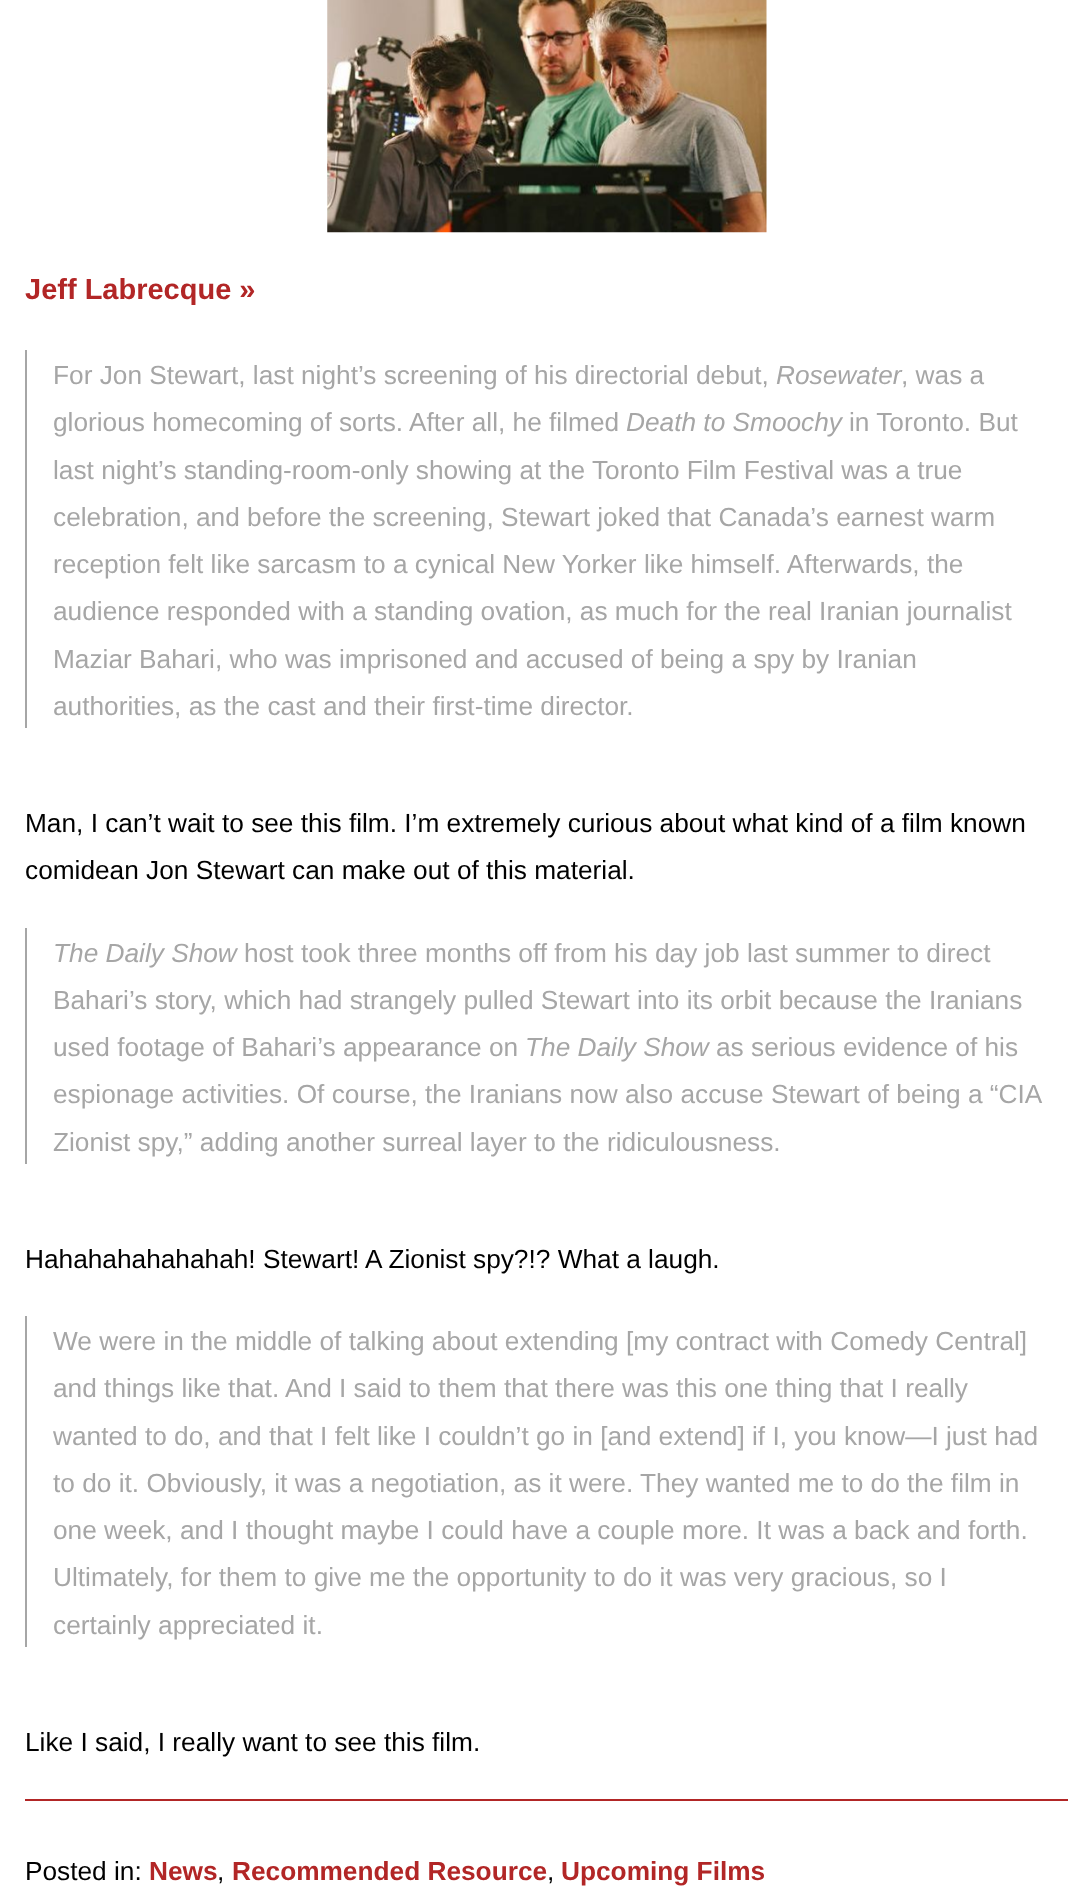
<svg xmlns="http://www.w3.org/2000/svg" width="1091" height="1899">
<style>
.a{font:bold 29px Liberation Sans;fill:#b22626}
.b{font:26.25px Liberation Sans;fill:#a6a6a6}
.c{font:italic 26.25px Liberation Sans;fill:#a6a6a6}
.d{font:26.25px Liberation Sans;fill:#000}
.e{font:bold 26.25px Liberation Sans;fill:#b22626}
</style>
<rect width="100%" height="100%" fill="#fff"/>
<image href="1.png" x="327" y="0" width="440" height="233"/>
<path fill="#a6a6a6" d="M25 350h2v378H25z"/>
<path fill="#a6a6a6" d="M25 928h2v236H25z"/>
<path fill="#a6a6a6" d="M25 1316h2v331H25z"/>
<path fill="#b22626" d="M25 1799h1043v2H25z"/>
<text class="a" x="25" y="299">Jeff Labrecque »</text>
<text class="b" x="53" y="384">For Jon Stewart, last night’s screening of his directorial debut,</text>
<text class="c" x="776" y="384">Rosewater</text>
<text class="b" x="901" y="384">, was a</text>
<text class="b" x="53" y="431">glorious homecoming of sorts. After all, he filmed</text>
<text class="c" x="626" y="431">Death to Smoochy</text>
<text class="b" x="849" y="431">in Toronto. But</text>
<text class="b" x="53" y="479">last night’s standing-room-only showing at the Toronto Film Festival was a true</text>
<text class="b" x="53" y="526">celebration, and before the screening, Stewart joked that Canada’s earnest warm</text>
<text class="b" x="53" y="573">reception felt like sarcasm to a cynical New Yorker like himself. Afterwards, the</text>
<text class="b" x="53" y="620">audience responded with a standing ovation, as much for the real Iranian journalist</text>
<text class="b" x="53" y="668">Maziar Bahari, who was imprisoned and accused of being a spy by Iranian</text>
<text class="b" x="53" y="715">authorities, as the cast and their first-time director.</text>
<text class="d" x="25" y="832">Man, I can’t wait to see this film. I’m extremely curious about what kind of a film known</text>
<text class="d" x="25" y="879">comidean Jon Stewart can make out of this material.</text>
<text class="c" x="53" y="962">The Daily Show</text>
<text class="b" x="244" y="962">host took three months off from his day job last summer to direct</text>
<text class="b" x="53" y="1009">Bahari’s story, which had strangely pulled Stewart into its orbit because the Iranians</text>
<text class="b" x="53" y="1056">used footage of Bahari’s appearance on</text>
<text class="c" x="525" y="1056">The Daily Show</text>
<text class="b" x="716" y="1056">as serious evidence of his</text>
<text class="b" x="53" y="1103">espionage activities. Of course, the Iranians now also accuse Stewart of being a “CIA</text>
<text class="b" x="53" y="1151">Zionist spy,” adding another surreal layer to the ridiculousness.</text>
<text class="d" x="25" y="1268">Hahahahahahahah! Stewart! A Zionist spy?!? What a laugh.</text>
<text class="b" x="53" y="1350">We were in the middle of talking about extending [my contract with Comedy Central]</text>
<text class="b" x="53" y="1397">and things like that. And I said to them that there was this one thing that I really</text>
<text class="b" x="53" y="1445">wanted to do, and that I felt like I couldn’t go in [and extend] if I, you know—I just had</text>
<text class="b" x="53" y="1492">to do it. Obviously, it was a negotiation, as it were. They wanted me to do the film in</text>
<text class="b" x="53" y="1539">one week, and I thought maybe I could have a couple more. It was a back and forth.</text>
<text class="b" x="53" y="1586">Ultimately, for them to give me the opportunity to do it was very gracious, so I</text>
<text class="b" x="53" y="1634">certainly appreciated it.</text>
<text class="d" x="25" y="1751">Like I said, I really want to see this film.</text>
<text class="d" x="25" y="1880">Posted in:</text>
<text class="e" x="149" y="1880">News</text>
<text class="d" x="217" y="1880">,</text>
<text class="e" x="232" y="1880">Recommended Resource</text>
<text class="d" x="547" y="1880">,</text>
<text class="e" x="561" y="1880">Upcoming Films</text>
</svg>
